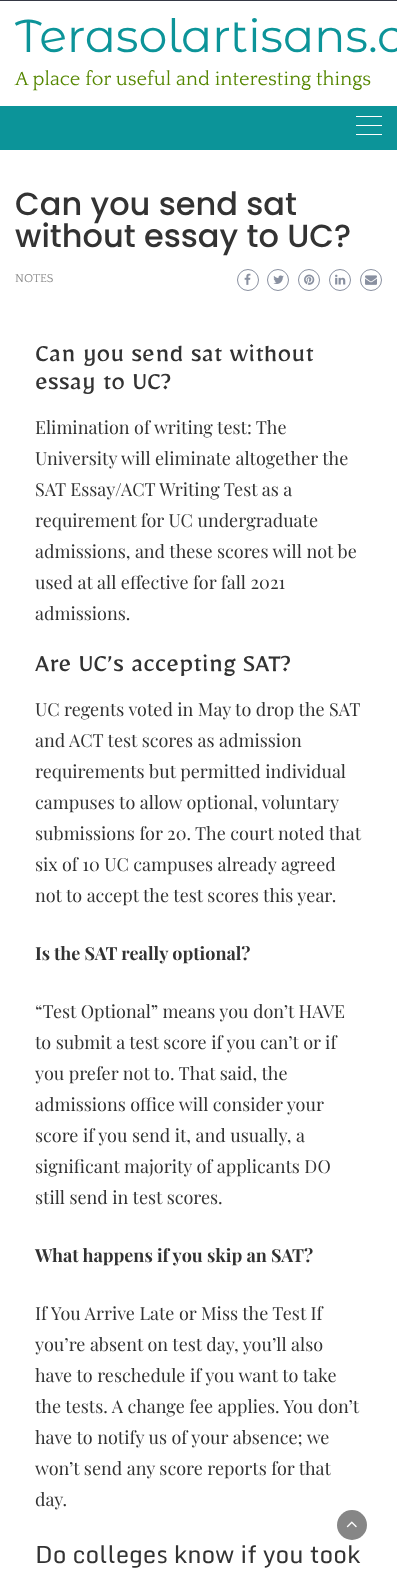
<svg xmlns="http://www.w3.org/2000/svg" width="397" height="1570">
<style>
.a{font:46px Montserrat Alternates;fill:#0c9499}
.b{font:20px Quattrocento;fill:#558700}
.c{font:500 32px Poppins;fill:#333}
.d{font:12px Quattrocento;fill:#888}
.e{font:28px Mirza;fill:#333}
.f{font:18px Playfair Display;fill:#333}
.g{font:bold 18px Playfair Display;fill:#333}
.h{font:24px Monda;fill:#333}
</style>
<rect width="100%" height="100%" fill="#fff"/>
<path fill="#353844" d="M0 0h397v1H0z"/>
<path fill="#0c9499" d="M0 106h397v44H0z"/>
<path fill="#fff" d="M356 116h26v1H356z"/>
<path fill="#fff" d="M356 125h26v1H356z"/>
<path fill="#fff" d="M356 134h26v1H356z"/>
<circle fill="none" stroke="#8990a0" cx="248" cy="280" r="10.5"/>
<image href="1.png" x="244" y="273" width="7" height="12"/>
<circle fill="none" stroke="#8990a0" cx="278" cy="280" r="10.5"/>
<image href="2.png" x="273" y="275" width="11" height="9"/>
<circle fill="none" stroke="#8990a0" cx="309" cy="280" r="10.5"/>
<image href="3.png" x="304" y="274" width="11" height="11"/>
<circle fill="none" stroke="#8990a0" cx="340" cy="280" r="10.5"/>
<image href="4.png" x="335" y="274" width="11" height="11"/>
<circle fill="none" stroke="#8990a0" cx="371" cy="280" r="10.5"/>
<image href="5.png" x="365" y="275" width="12" height="10"/>
<circle fill="#868686" cx="352" cy="1525" r="15"/>
<image href="6.png" x="346" y="1521" width="11" height="7"/>
<text class="a" x="15" y="52">Terasolartisans.c</text>
<text class="b" x="15" y="85">A place for useful and interesting things</text>
<text class="c" x="15" y="215">Can you send sat</text>
<text class="c" x="15" y="247">without essay to UC?</text>
<text class="d" x="15" y="282">NOTES</text>
<text class="e" x="35" y="361">Can you send sat without</text>
<text class="e" x="35" y="389">essay to UC?</text>
<text class="f" x="35" y="434">Elimination of writing test: The</text>
<text class="f" x="35" y="465">University will eliminate altogether the</text>
<text class="f" x="35" y="496">SAT Essay/ACT Writing Test as a</text>
<text class="f" x="35" y="527">requirement for UC undergraduate</text>
<text class="f" x="35" y="558">admissions, and these scores will not be</text>
<text class="f" x="35" y="589">used at all effective for fall 2021</text>
<text class="f" x="35" y="620">admissions.</text>
<text class="e" x="35" y="671">Are UC’s accepting SAT?</text>
<text class="f" x="35" y="716">UC regents voted in May to drop the SAT</text>
<text class="f" x="35" y="747">and ACT test scores as admission</text>
<text class="f" x="35" y="778">requirements but permitted individual</text>
<text class="f" x="35" y="809">campuses to allow optional, voluntary</text>
<text class="f" x="35" y="840">submissions for 20. The court noted that</text>
<text class="f" x="35" y="871">six of 10 UC campuses already agreed</text>
<text class="f" x="35" y="902">not to accept the test scores this year.</text>
<text class="g" x="35" y="960">Is the SAT really optional?</text>
<text class="f" x="35" y="1018">“Test Optional” means you don’t HAVE</text>
<text class="f" x="35" y="1049">to submit a test score if you can’t or if</text>
<text class="f" x="35" y="1080">you prefer not to. That said, the</text>
<text class="f" x="35" y="1111">admissions office will consider your</text>
<text class="f" x="35" y="1142">score if you send it, and usually, a</text>
<text class="f" x="35" y="1173">significant majority of applicants DO</text>
<text class="f" x="35" y="1204">still send in test scores.</text>
<text class="g" x="35" y="1262">What happens if you skip an SAT?</text>
<text class="f" x="35" y="1320">If You Arrive Late or Miss the Test If</text>
<text class="f" x="35" y="1351">you’re absent on test day, you’ll also</text>
<text class="f" x="35" y="1382">have to reschedule if you want to take</text>
<text class="f" x="35" y="1413">the tests. A change fee applies. You don’t</text>
<text class="f" x="35" y="1444">have to notify us of your absence; we</text>
<text class="f" x="35" y="1475">won’t send any score reports for that</text>
<text class="f" x="35" y="1506">day.</text>
<text class="h" x="35" y="1563">Do colleges know if you took</text>
</svg>
